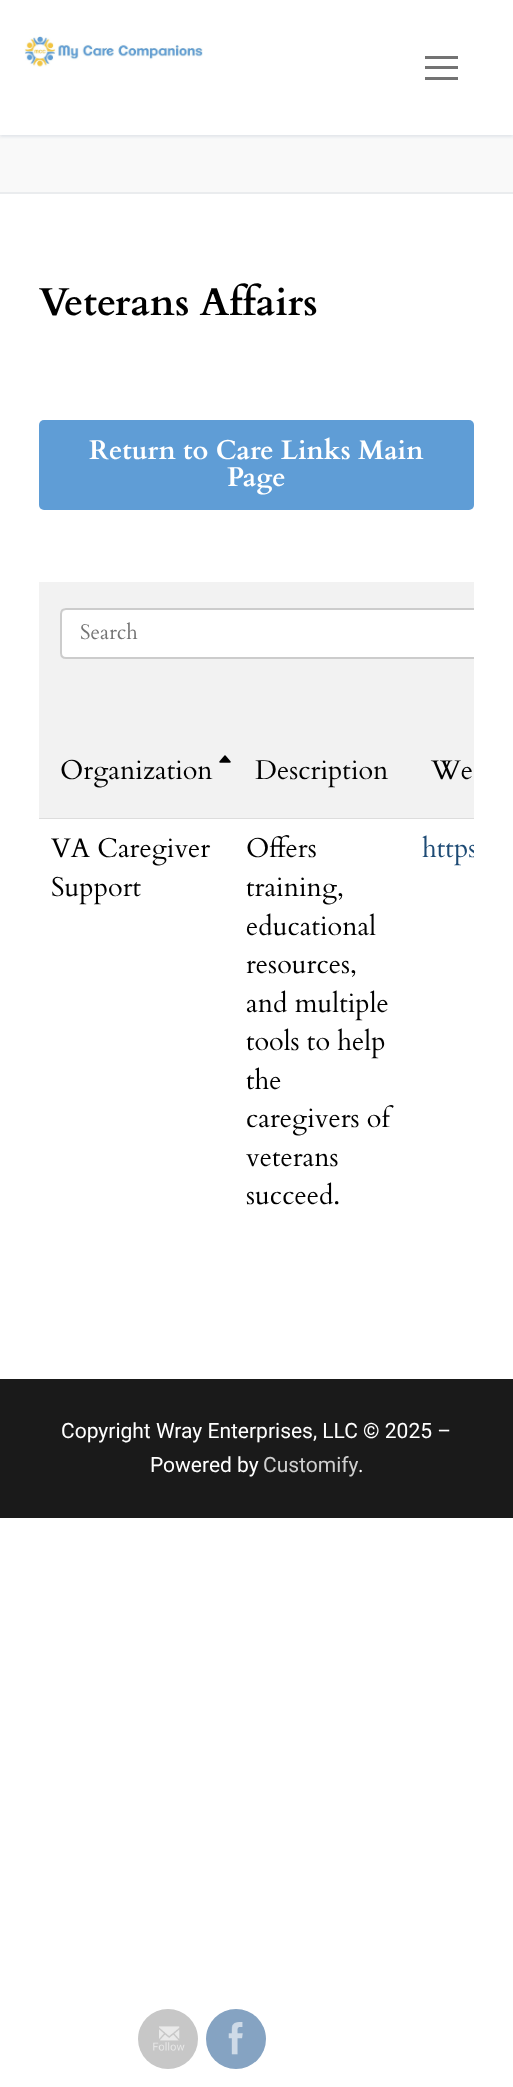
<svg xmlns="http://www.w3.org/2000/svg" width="513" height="2087">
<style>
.a{font:bold 39px Cardo;fill:#000}
.b{font:bold 27px Cardo;fill:#fff}
.c{font:21px Cardo;fill:#757575}
.d{font:27px Cardo;fill:#000}
.e{font:27px Cardo;fill:#1e4b75}
.f{font:21px Roboto;fill:#fff}
.g{font:21px Roboto;fill:#cfcfcf}
</style>
<defs>
<clipPath id="clip1"><path d="M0 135h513v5H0z"/></clipPath>
<clipPath id="clip2"><path d="M39 582h435v677H39z"/></clipPath>
</defs>
<rect width="100%" height="100%" fill="#fff"/>
<path fill="#f9f9f9" d="M0 135h513v57H0z"/>
<g clip-path="url(#clip1)">
<path fill="#e1e5ea" filter="blur(1.5px)" d="M0 2h513v135H0z"/>
</g>
<image href="1.png" x="24" y="36" width="179" height="31"/>
<path fill="#737373" d="M425 66h33v3H425z"/>
<path fill="#737373" d="M425 56h33v3H425z"/>
<path fill="#737373" d="M425 77h33v3H425z"/>
<path fill="#eaecee" d="M0 192h513v2H0z"/>
<rect fill="#5f9dd6" x="39" y="420" width="435" height="90" rx="5"/>
<path fill="#f2f2f2" d="M39 582h435v105H39z"/>
<path fill="#fff" d="M66 608h408v51h-408c-3.5 0-6-2.5-6-6v-39c0-3.5 2.5-6 6-6z"/>
<g clip-path="url(#clip2)">
<path fill="#ececec" d="M66 610h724v47h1v-48h-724c-3 0-5 3-5 6c0-2 2-5 4-5z"/>
<path fill="none" stroke="#ccc" stroke-width="2" d="M66 609h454v49h-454c-3 0-5-2-5-5v-39c0-3 2-5 5-5z"/>
</g>
<path fill="#f2f2f2" d="M39 687h435v131H39z"/>
<image href="2.png" x="219" y="755" width="12" height="8"/>
<path fill="#ddd" d="M39 818h435v1H39z"/>
<path fill="#1a1a1a" d="M0 1379h513v139H0z"/>
<circle fill="#c7c7c7" cx="168" cy="2039" r="30"/>
<image href="3.png" x="153" y="2026" width="32" height="25"/>
<circle fill="#85a3c2" cx="236" cy="2039" r="30"/>
<image href="4.png" x="228" y="2022" width="15" height="33"/>
<text class="a" x="39" y="315">Veterans Affairs</text>
<text class="b" x="89" y="459">Return to Care Links Main</text>
<text class="b" x="227" y="486">Page</text>
<text class="c" x="80" y="639">Search</text>
<text class="d" x="60" y="779">Organization</text>
<text class="d" x="255" y="779">Description</text>
<text class="d" x="431" y="779">We</text>
<text class="d" x="51" y="857">VA Caregiver</text>
<text class="d" x="51" y="896">Support</text>
<text class="d" x="246" y="857">Offers</text>
<text class="d" x="246" y="896">training,</text>
<text class="d" x="246" y="935">educational</text>
<text class="d" x="246" y="973">resources,</text>
<text class="d" x="246" y="1012">and multiple</text>
<text class="d" x="246" y="1050">tools to help</text>
<text class="d" x="246" y="1089">the</text>
<text class="d" x="246" y="1127">caregivers of</text>
<text class="d" x="246" y="1166">veterans</text>
<text class="d" x="246" y="1204">succeed.</text>
<g clip-path="url(#clip2)">
<text class="e" x="422" y="857">https</text>
</g>
<text class="f" x="61" y="1438">Copyright Wray Enterprises, LLC © 2025 –</text>
<text class="f" x="150" y="1472">Powered by</text>
<text class="g" x="263" y="1472">Customify</text>
<text class="f" x="358" y="1472">.</text>
</svg>
